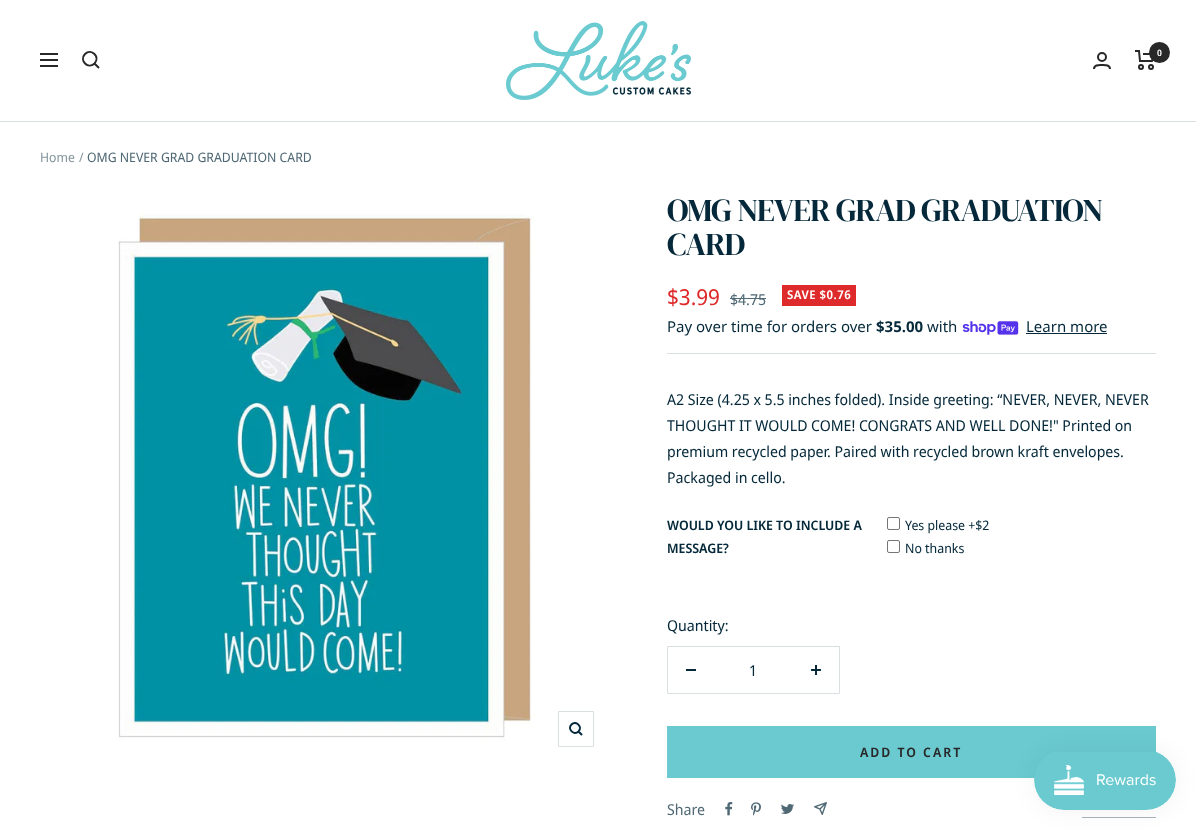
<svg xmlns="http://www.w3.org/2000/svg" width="1196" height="830">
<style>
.a{font:600 9px Noto Sans Display;fill:#fff}
.b{font:13px Noto Sans Display;fill:#85969e}
.c{font:13px Noto Sans Display;fill:#506975}
.d{font:32px DM Serif Display;letter-spacing:-0.8px;fill:#05293a}
.e{font:22px Noto Sans Display;fill:#de2a2a}
.f{font:15px Noto Sans Display;fill:#506975}
.g{font:600 12px Noto Sans Display;letter-spacing:0.5px;fill:#fff}
.h{font:15px Noto Sans;fill:#05293a}
.i{font:bold 15px Noto Sans;fill:#05293a}
.j{font:15px Noto Sans Display;fill:#05293a}
.k{font:600 13.1px Noto Sans Display;fill:#05293a}
.l{font:13.1px Noto Sans Display;fill:#05293a}
.m{font:600 13px Noto Sans Display;letter-spacing:2px;fill:#282828}
</style>
<rect width="100%" height="100%" fill="#fff"/>
<path fill="#dadfe1" d="M0 121h1196v1H0z"/>
<path fill="none" stroke="#282828" stroke-width="2" d="M40 54h18m-18 12h18zm0-6h18zm54.5 3.5c6-6.5-3-15.5-9.5-9.5c-6 6.5 3 15.5 9.5 9.5zm0 0l4.5 4.5"/>
<image href="1.png" x="506" y="21" width="185" height="79"/>
<circle fill="none" stroke="#282828" stroke-width="2" cx="1102" cy="57" r="4"/>
<path fill="none" stroke="#282828" stroke-width="2" d="M1094 69c0-4.5 5-4 8-4c3 0 8-.5 8 4m25-18h4l1 10h12l2-7h-11"/>
<circle fill="#282828" cx="1159.5" cy="52.5" r="10.5"/>
<circle fill="none" stroke="#282828" stroke-width="2" cx="1141" cy="67" r="2"/>
<circle fill="none" stroke="#282828" stroke-width="2" cx="1151" cy="67" r="2"/>
<image href="2.png" x="40" y="193" width="570" height="570"/>
<path fill="none" stroke="#dadfe1" d="M558.5 711.5h35v35H558.5z"/>
<path fill="none" stroke="#05293a" stroke-width="2" d="M578.5 731.5c4.5-4.5-2.5-11.5-7-7c-4.5 4.5 2.5 11.5 7 7zm0 0l3.5 3.5"/>
<path fill="#dadfe1" d="M667 353h489v1H667z"/>
<path fill="#506975" d="M730 298h36v1H730z"/>
<path fill="#de2a2a" d="M782 285h74v21H782z"/>
<image href="3.png" x="962" y="321" width="57" height="14"/>
<path fill="#05293a" d="M1026 333h81v1H1026z"/>
<rect fill="none" stroke="#767676" x="887.5" y="517.5" width="12" height="12" rx="1.5"/>
<rect fill="none" stroke="#767676" x="887.5" y="540.5" width="12" height="12" rx="1.5"/>
<path fill="none" stroke="#dadfe1" d="M667.5 646.5h172v47H667.5z"/>
<path fill="#05293a" d="M686 669h10v2H686z"/>
<image href="4.png" x="811" y="665" width="10" height="10"/>
<path fill="#6acad0" d="M667 726h489v52H667z"/>
<image href="5.png" x="725" y="802" width="8" height="14"/>
<image href="6.png" x="751" y="802" width="10" height="14"/>
<image href="7.png" x="781" y="804" width="13" height="10"/>
<image href="8.png" x="814" y="802" width="13" height="13"/>
<path fill="#a8b4ba" d="M1082 817h74v1H1082z"/>
<rect fill="#0000000d" filter="blur(12.5px)" x="1034" y="750" width="142" height="60" rx="30"/>
<image href="9.png" x="1034" y="752" width="142" height="58"/>
<text class="a" x="1157" y="56">0</text>
<text class="b" x="40" y="162">Home</text>
<text class="b" x="79" y="162">/</text>
<text class="c" x="87" y="162">OMG NEVER GRAD GRADUATION CARD</text>
<text class="d" x="667" y="221">OMG NEVER GRAD GRADUATION</text>
<text class="d" x="667" y="255">CARD</text>
<text class="e" x="667" y="305">$3.99</text>
<text class="f" x="730" y="305">$4.75</text>
<text class="g" x="787" y="299">SAVE $0.76</text>
<text class="h" x="667" y="332">Pay over time for orders over</text>
<text class="i" x="876" y="332">$35.00</text>
<text class="h" x="927" y="332">with</text>
<text class="h" x="1026" y="332">Learn more</text>
<text class="j" x="667" y="405">A2 Size (4.25 x 5.5 inches folded). Inside greeting: “NEVER, NEVER, NEVER</text>
<text class="j" x="667" y="431">THOUGHT IT WOULD COME! CONGRATS AND WELL DONE!" Printed on</text>
<text class="j" x="667" y="457">premium recycled paper. Paired with recycled brown kraft envelopes.</text>
<text class="j" x="667" y="483">Packaged in cello.</text>
<text class="k" x="667" y="530">WOULD YOU LIKE TO INCLUDE A</text>
<text class="k" x="667" y="553">MESSAGE?</text>
<text class="l" x="905" y="530">Yes please +$2</text>
<text class="l" x="905" y="553">No thanks</text>
<text class="j" x="667" y="631">Quantity:</text>
<text class="j" x="749" y="676">1</text>
<text class="m" x="860" y="757">ADD TO CART</text>
<text class="f" x="667" y="815">Share</text>
</svg>
